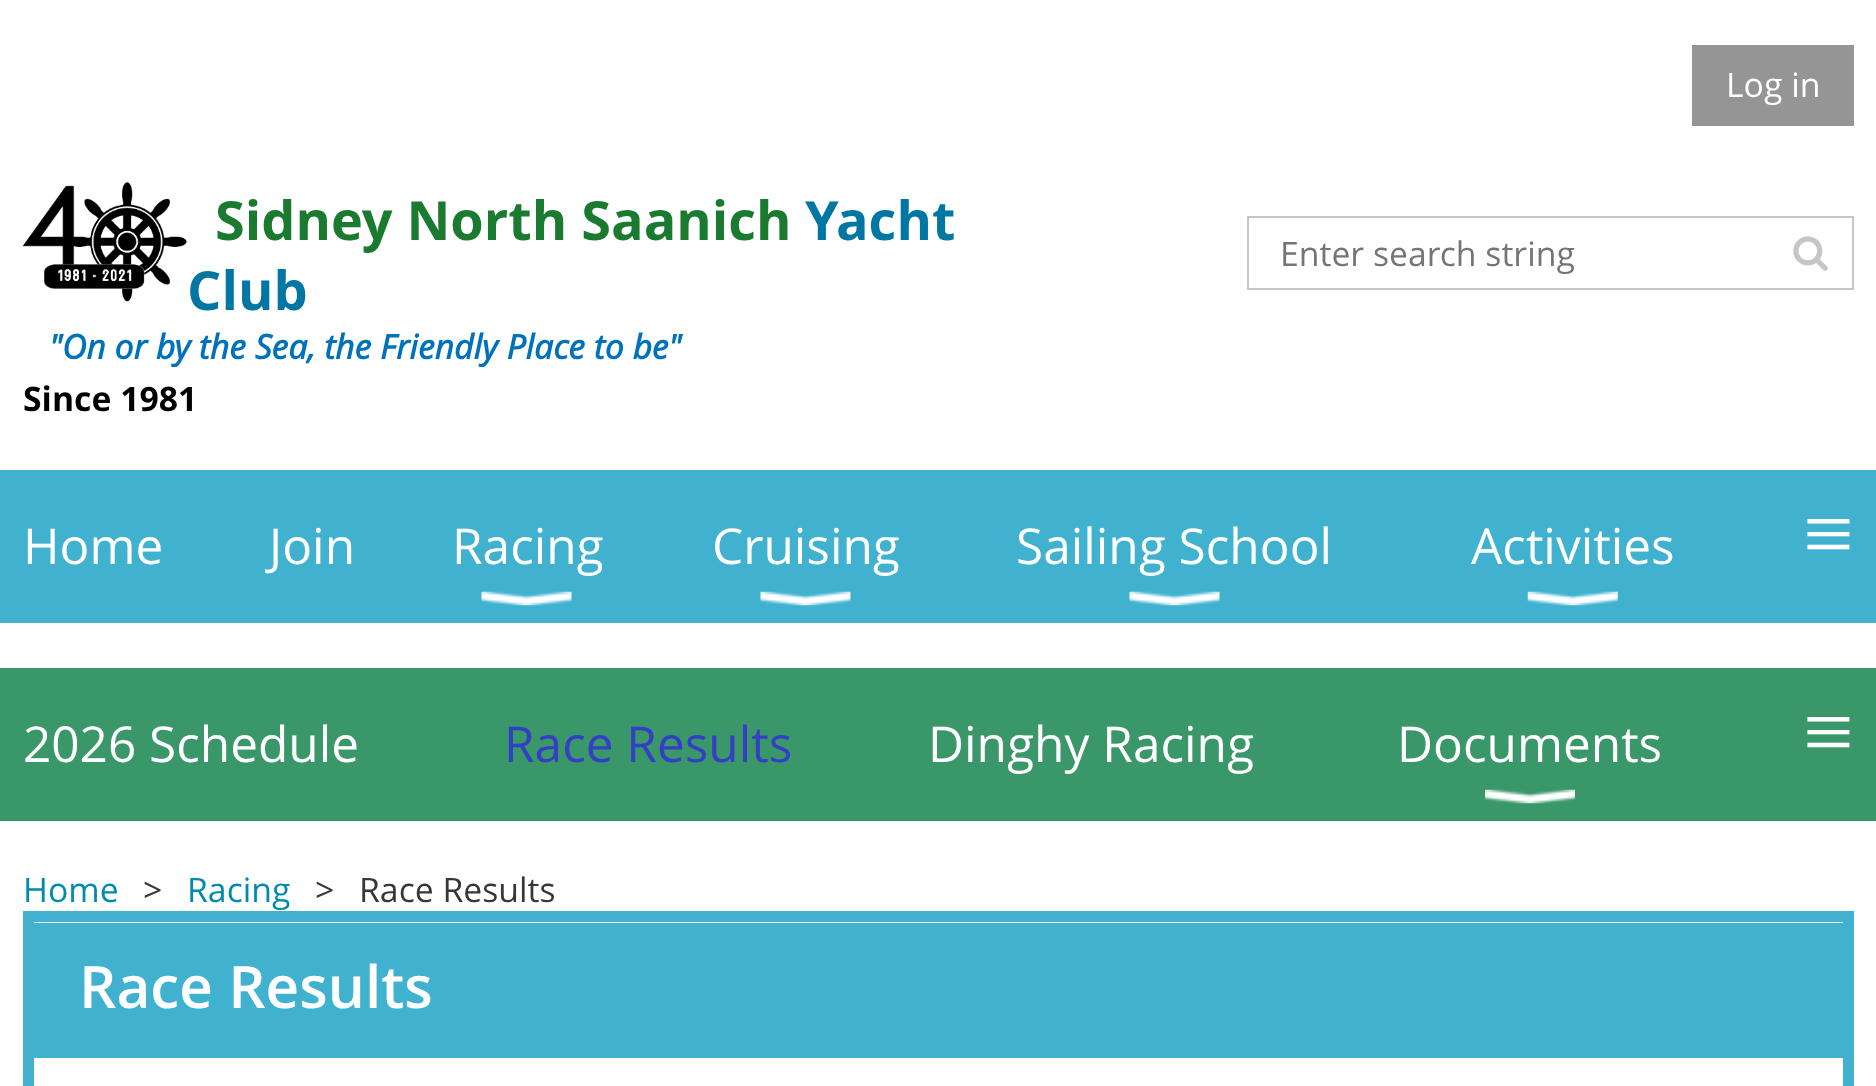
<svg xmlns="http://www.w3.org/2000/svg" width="1876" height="1086">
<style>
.a{font:33.75px Open Sans;fill:#fff}
.b{font:bold 54px Open Sans;fill:#1a7b30}
.c{font:bold 54px Open Sans;fill:#0076a3}
.d{font:italic bold 33.75px Open Sans;fill:#0072bc}
.e{font:bold 33.75px Open Sans;fill:#000}
.f{font:33.75px Open Sans;fill:#757575}
.g{font:49.5px Open Sans;fill:#fff}
.h{font:90px Liberation Serif;fill:#fff}
.i{font:49.5px Open Sans;fill:#343ec6}
.j{font:33.75px Open Sans;fill:#008bae}
.k{font:33.75px Open Sans;fill:#373737}
.l{font:600 58.5px Open Sans;fill:#fff}
</style>
<rect width="100%" height="100%" fill="#fff"/>
<path fill="#959595" d="M1692 45h162v81H1692z"/>
<image href="1.png" x="22" y="182" width="165" height="120"/>
<path fill="none" stroke="#c6c6c6" stroke-width="2" d="M1248 217h605v72H1248z"/>
<image href="2.png" x="1793" y="236" width="35" height="35"/>
<path fill="#40b2cf" d="M0 470h1876v153H0z"/>
<image href="3.png" x="481" y="591" width="91" height="15"/>
<image href="4.png" x="760" y="591" width="91" height="15"/>
<image href="5.png" x="1129" y="591" width="91" height="15"/>
<image href="6.png" x="1527" y="591" width="91" height="15"/>
<path fill="#3a976a" d="M0 668h1876v153H0z"/>
<image href="7.png" x="1485" y="789" width="90" height="15"/>
<path fill="none" stroke="#40b2cf" stroke-width="11" d="M28.5 916.5h1820v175H28.5z"/>
<path fill="#40b2cf" d="M34 923h1809v135H34z"/>
<text class="a" x="1726" y="97">Log in</text>
<text class="b" x="215" y="240">Sidney North Saanich</text>
<text class="c" x="805" y="240">Yacht</text>
<text class="c" x="187" y="310">Club</text>
<text class="d" x="49" y="359">"On or by the Sea, the Friendly Place to be"</text>
<text class="e" x="23" y="411">Since 1981</text>
<text class="f" x="1280" y="266">Enter search string</text>
<text class="g" x="23" y="564">Home</text>
<text class="g" x="269" y="564">Join</text>
<text class="g" x="452" y="564">Racing</text>
<text class="g" x="712" y="564">Cruising</text>
<text class="g" x="1016" y="564">Sailing School</text>
<text class="g" x="1471" y="564">Activities</text>
<text class="h" x="1803" y="564">≡</text>
<text class="g" x="23" y="762">2026 Schedule</text>
<text class="i" x="504" y="762">Race Results</text>
<text class="g" x="928" y="762">Dinghy Racing</text>
<text class="g" x="1397" y="762">Documents</text>
<text class="h" x="1803" y="762">≡</text>
<text class="j" x="23" y="902">Home</text>
<text class="k" x="143" y="902">&gt;</text>
<text class="j" x="187" y="902">Racing</text>
<text class="k" x="315" y="902">&gt;</text>
<text class="k" x="359" y="902">Race Results</text>
<text class="l" x="79" y="1008">Race Results</text>
</svg>
